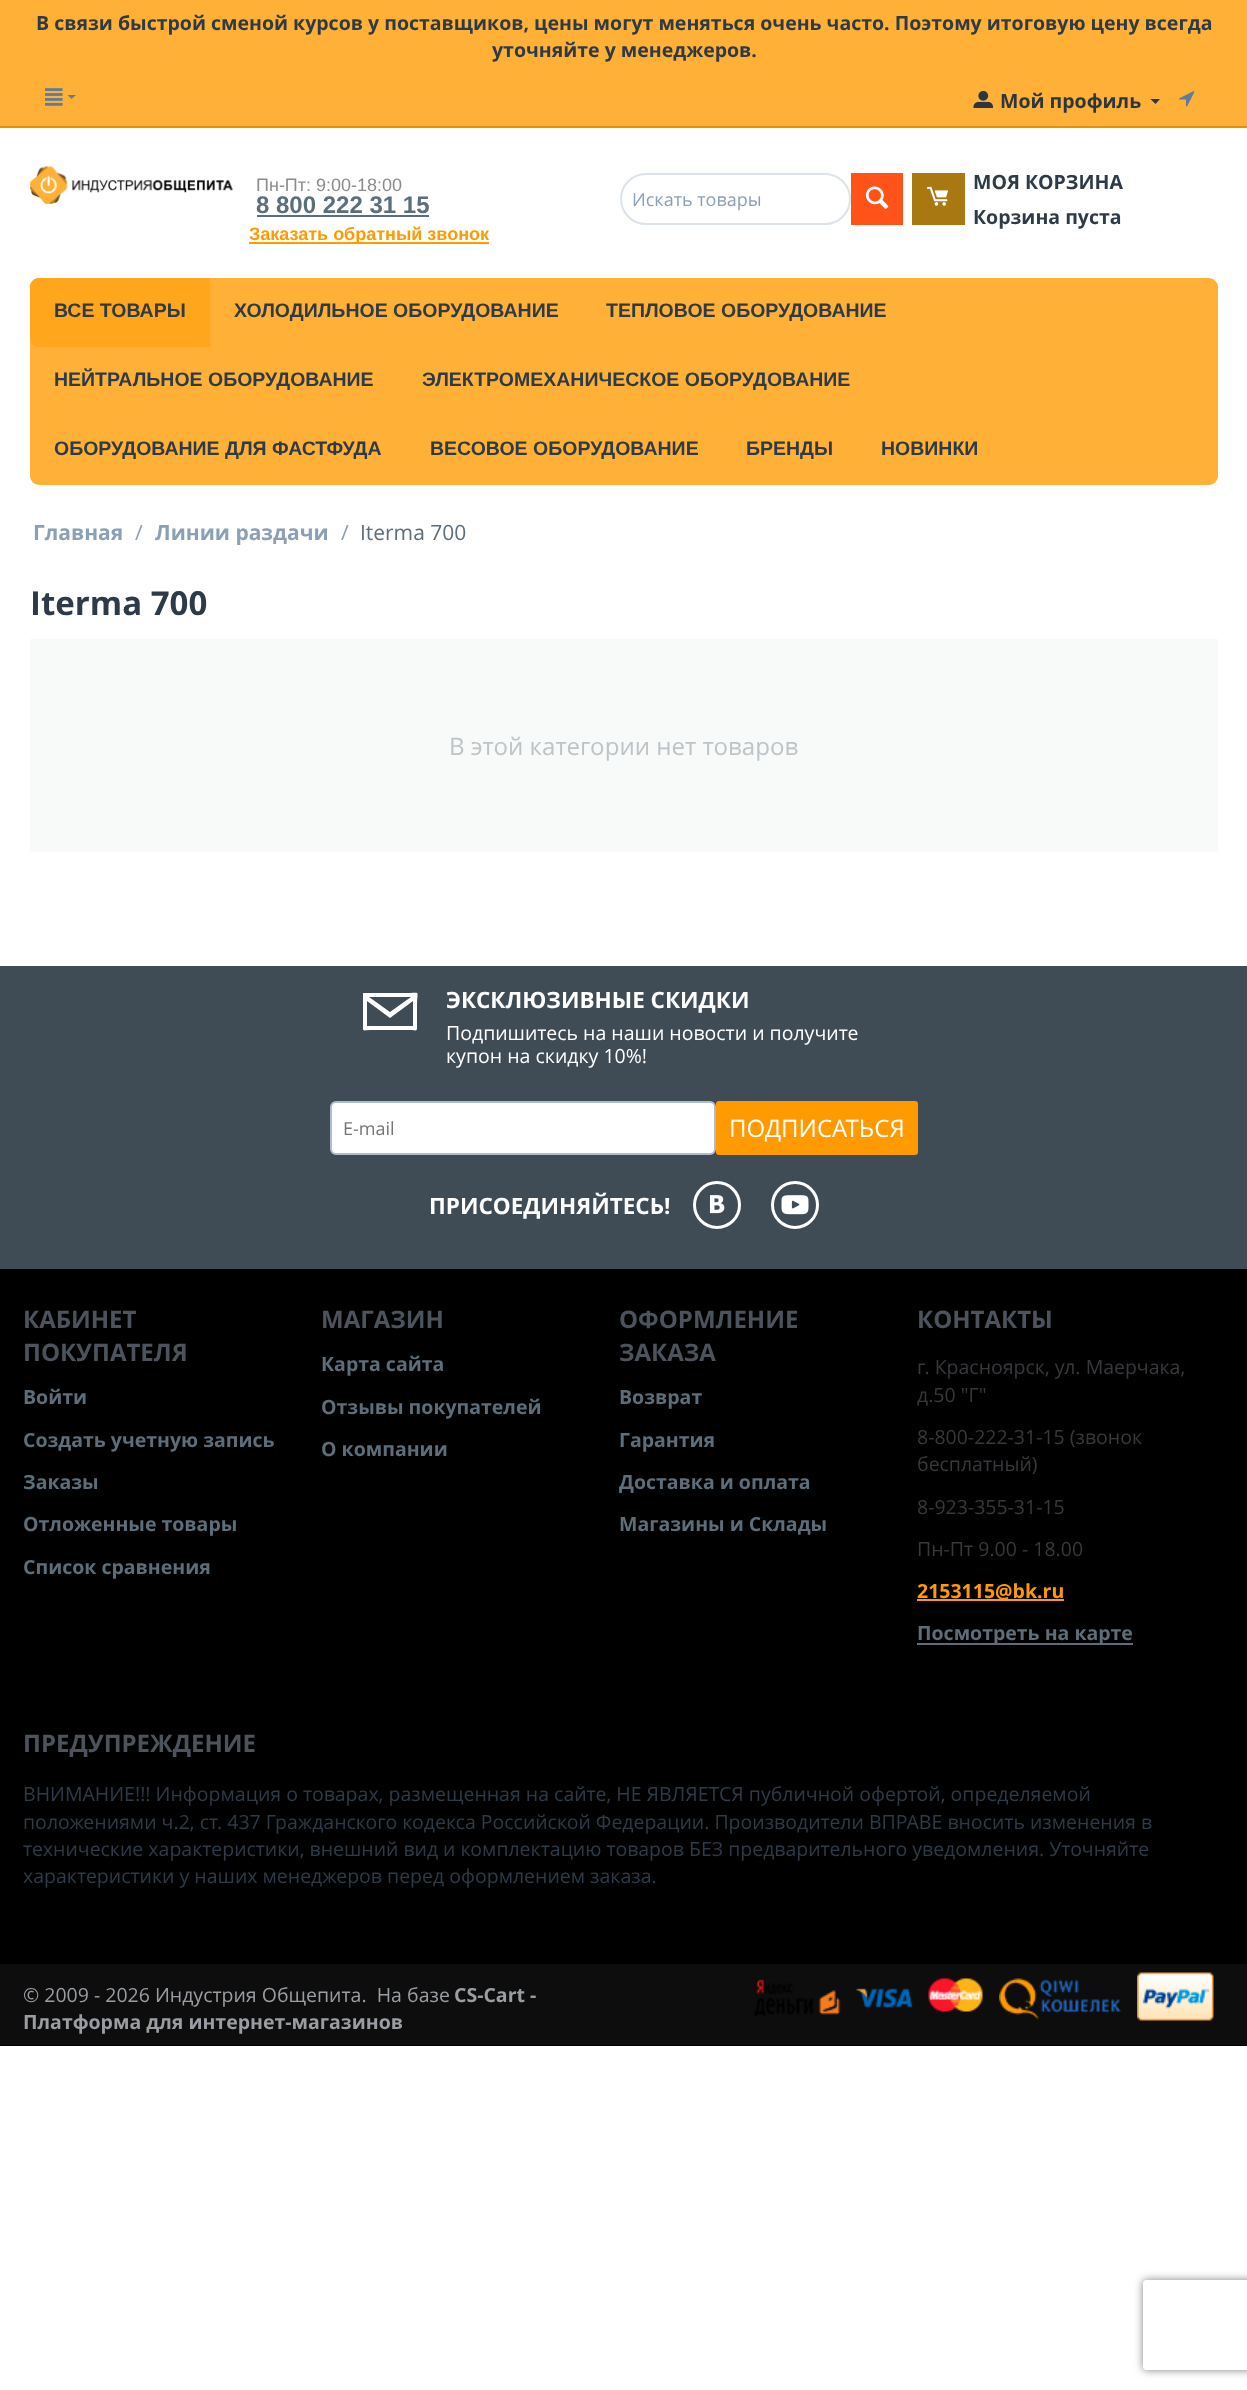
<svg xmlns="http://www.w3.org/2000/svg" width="1247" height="2390">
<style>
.a{font:bold 19.5px Open Sans;fill:#2e3a47}
.b{font:bold 19.5px Open Sans;fill:#2d3540}
.c{font:18px Liberation Sans;fill:#8d8c8c}
.d{font:bold 24px Liberation Sans;fill:#5d6e7b}
.e{font:bold 18px Liberation Sans;fill:#ff9b00}
.f{font:18px Open Sans;fill:#8ca0b5}
.g{font:bold 19.5px Liberation Sans;fill:#2e3a47}
.h{font:bold 21px Open Sans;fill:#8ca0b5}
.i{font:21px Open Sans;fill:#8ca0b5}
.j{font:21px Open Sans;fill:#5d6e7b}
.k{font:bold 33px Open Sans;fill:#2e3a47}
.l{font:24.1px Open Sans;fill:#bdc3c7}
.m{font:bold 22.5px Open Sans;fill:#fff}
.n{font:19.5px Open Sans;fill:#fff}
.o{font:18px Open Sans;fill:#757575}
.p{font:24px Open Sans;fill:#fff}
.q{font:bold 24px Open Sans;fill:#4c535d}
.r{font:bold 19.5px Open Sans;fill:#5d6e7b}
.s{font:19.5px Open Sans;fill:#36383b}
.t{font:bold 19.5px Open Sans;fill:#ff9b00}
.u{font:19.5px Open Sans;fill:#2e3a47}
.v{font:19.5px Open Sans;fill:#9a9ea3}
.w{font:bold 19.5px Open Sans;fill:#9a9ea3}
</style>
<defs>
<clipPath id="clip1"><path d="M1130 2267h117v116h-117zm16 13h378c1.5 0 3 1.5 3 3v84c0 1.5-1.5 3-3 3h-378c-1.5 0-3-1.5-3-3v-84c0-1.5 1.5-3 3-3z" clip-rule="evenodd"/></clipPath>
</defs>
<rect width="100%" height="100%" fill="#fff"/>
<path fill="#ffb036" d="M0 0h1247v126H0z"/>
<path fill="#e98d00" d="M0 126h1247v2H0z"/>
<image href="1.png" x="45" y="88" width="18" height="18"/>
<path fill="#5e7d9c" d="M71.5 99l-4-4h8.5z"/>
<image href="2.png" x="973" y="90" width="20" height="18"/>
<path fill="#2d3540" d="M1155.5 104l-5-5h9.5z"/>
<image href="3.png" x="1179" y="91" width="16" height="16"/>
<image href="4.png" x="30" y="166" width="203" height="38"/>
<path fill="#5d6e7b" d="M257 215h172v2H257z"/>
<path fill="#ff9b00" d="M249 242h240v2H249z"/>
<rect fill="none" stroke="#dce3ea" stroke-width="2" x="621" y="174" width="229" height="50" rx="25"/>
<path fill="#ff5319" d="M851 173h52v52H851z"/>
<image href="5.png" x="865" y="186" width="24" height="23"/>
<path fill="#aa7811" d="M912 173h53v52H912z"/>
<image href="6.png" x="927" y="186" width="21" height="20"/>
<rect fill="#ffb036" x="30" y="278" width="1188" height="207" rx="9"/>
<path fill="#ffa61d" d="M39 278h171v69h-171c-5 0-9-4-9-9v-51c0-5 4-9 9-9z"/>
<path fill="#f8f9f9" d="M30 639h1188v213H30z"/>
<path fill="#000" d="M0 1269h1247v777H0z"/>
<path fill="#404c55" d="M0 966h1247v303H0z"/>
<path fill="#fff" d="M364 993h-1v30c0 10-1 7 9 7h36c10 0 9 3 9-7v-18c0-15 4-12-9-12zm47 4l-21 15l-21-15zm2 29h-46v-25l23 17l23-17z"/>
<rect fill="#fff" stroke="#acbdcd" stroke-width="2" x="331" y="1102" width="384" height="52" rx="5"/>
<rect fill="#ff9b00" x="716" y="1101" width="202" height="54" rx="3"/>
<circle fill="none" stroke="#fff" stroke-width="3" cx="717" cy="1205" r="22.5"/>
<image href="7.png" x="709" y="1195" width="16" height="19"/>
<circle fill="none" stroke="#fff" stroke-width="3" cx="795" cy="1205" r="22.5"/>
<image href="8.png" x="781" y="1195" width="28" height="20"/>
<path fill="#ff9b00" d="M917 1599h147v2H917z"/>
<path fill="#5d6e7b" d="M917 1643h216v2H917z"/>
<path fill="#0d0d0d" d="M0 1964h1247v81H0z"/>
<image href="9.png" x="754" y="1979" width="87" height="37"/>
<image href="10.png" x="856" y="1988" width="57" height="20"/>
<image href="11.png" x="928" y="1978" width="55" height="34"/>
<image href="12.png" x="999" y="1978" width="122" height="42"/>
<image href="13.png" x="1137" y="1972" width="77" height="49"/>
<g clip-path="url(#clip1)">
<rect fill="#808080" filter="blur(4px)" x="1143" y="2280" width="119" height="90" rx="3"/>
</g>
<text class="a" x="36" y="30">В связи быстрой сменой курсов у поставщиков, цены могут меняться очень часто. Поэтому итоговую цену всегда</text>
<text class="a" x="492" y="57">уточняйте у менеджеров.</text>
<text class="b" x="1000" y="108">Мой профиль</text>
<text class="c" x="256" y="191">Пн-Пт: 9:00-18:00</text>
<text class="d" x="256" y="213">8 800 222 31 15</text>
<text class="e" x="249" y="240">Заказать обратный звонок</text>
<text class="f" x="632" y="206">Искать товары</text>
<text class="a" x="973" y="189">МОЯ КОРЗИНА</text>
<text class="a" x="973" y="224">Корзина пуста</text>
<text class="g" x="54" y="317">ВСЕ ТОВАРЫ</text>
<text class="g" x="234" y="317">ХОЛОДИЛЬНОЕ ОБОРУДОВАНИЕ</text>
<text class="g" x="606" y="317">ТЕПЛОВОЕ ОБОРУДОВАНИЕ</text>
<text class="g" x="54" y="386">НЕЙТРАЛЬНОЕ ОБОРУДОВАНИЕ</text>
<text class="g" x="422" y="386">ЭЛЕКТРОМЕХАНИЧЕСКОЕ ОБОРУДОВАНИЕ</text>
<text class="g" x="54" y="455">ОБОРУДОВАНИЕ ДЛЯ ФАСТФУДА</text>
<text class="g" x="430" y="455">ВЕСОВОЕ ОБОРУДОВАНИЕ</text>
<text class="g" x="746" y="455">БРЕНДЫ</text>
<text class="g" x="881" y="455">НОВИНКИ</text>
<text class="h" x="33" y="540">Главная</text>
<text class="i" x="135" y="540">/</text>
<text class="h" x="155" y="540">Линии раздачи</text>
<text class="i" x="341" y="540">/</text>
<text class="j" x="360" y="540">Iterma 700</text>
<text class="k" x="30" y="615">Iterma 700</text>
<text class="l" x="449" y="755">В этой категории нет товаров</text>
<text class="m" x="446" y="1008">ЭКСКЛЮЗИВНЫЕ СКИДКИ</text>
<text class="n" x="446" y="1040">Подпишитесь на наши новости и получите</text>
<text class="n" x="446" y="1063">купон на скидку 10%!</text>
<text class="o" x="343" y="1135">E-mail</text>
<text class="p" x="729" y="1137">ПОДПИСАТЬСЯ</text>
<text class="m" x="429" y="1214">ПРИСОЕДИНЯЙТЕСЬ!</text>
<text class="q" x="23" y="1328">КАБИНЕТ</text>
<text class="q" x="23" y="1361">ПОКУПАТЕЛЯ</text>
<text class="r" x="23" y="1404">Войти</text>
<text class="r" x="23" y="1447">Создать учетную запись</text>
<text class="r" x="23" y="1489">Заказы</text>
<text class="r" x="23" y="1531">Отложенные товары</text>
<text class="r" x="23" y="1574">Список сравнения</text>
<text class="q" x="321" y="1328">МАГАЗИН</text>
<text class="r" x="321" y="1371">Карта сайта</text>
<text class="r" x="321" y="1414">Отзывы покупателей</text>
<text class="r" x="321" y="1456">О компании</text>
<text class="q" x="619" y="1328">ОФОРМЛЕНИЕ</text>
<text class="q" x="619" y="1361">ЗАКАЗА</text>
<text class="r" x="619" y="1404">Возврат</text>
<text class="r" x="619" y="1447">Гарантия</text>
<text class="r" x="619" y="1489">Доставка и оплата</text>
<text class="r" x="619" y="1531">Магазины и Склады</text>
<text class="q" x="917" y="1328">КОНТАКТЫ</text>
<text class="s" x="917" y="1374">г. Красноярск, ул. Маерчака,</text>
<text class="s" x="917" y="1402">д.50 "Г"</text>
<text class="s" x="917" y="1444">8-800-222-31-15 (звонок</text>
<text class="s" x="917" y="1471">бесплатный)</text>
<text class="s" x="917" y="1514">8-923-355-31-15</text>
<text class="s" x="917" y="1556">Пн-Пт 9.00 - 18.00</text>
<text class="t" x="917" y="1598">2153115@bk.ru</text>
<text class="r" x="917" y="1640">Посмотреть на карте</text>
<text class="q" x="23" y="1752">ПРЕДУПРЕЖДЕНИЕ</text>
<text class="u" x="23" y="1801">ВНИМАНИЕ!!! Информация о товарах, размещенная на сайте, НЕ ЯВЛЯЕТСЯ публичной офертой, определяемой</text>
<text class="u" x="23" y="1829">положениями ч.2, ст. 437 Гражданского кодекса Российской Федерации. Производители ВПРАВЕ вносить изменения в</text>
<text class="u" x="23" y="1856">технические характеристики, внешний вид и комплектацию товаров БЕЗ предварительного уведомления. Уточняйте</text>
<text class="u" x="23" y="1883">характеристики у наших менеджеров перед оформлением заказа.</text>
<text class="v" xml:space="preserve" x="23" y="2002">© 2009 - 2026 Индустрия Общепита.  На базе</text>
<text class="w" x="454" y="2002">CS-Cart -</text>
<text class="w" x="23" y="2029">Платформа для интернет-магазинов</text>
</svg>
